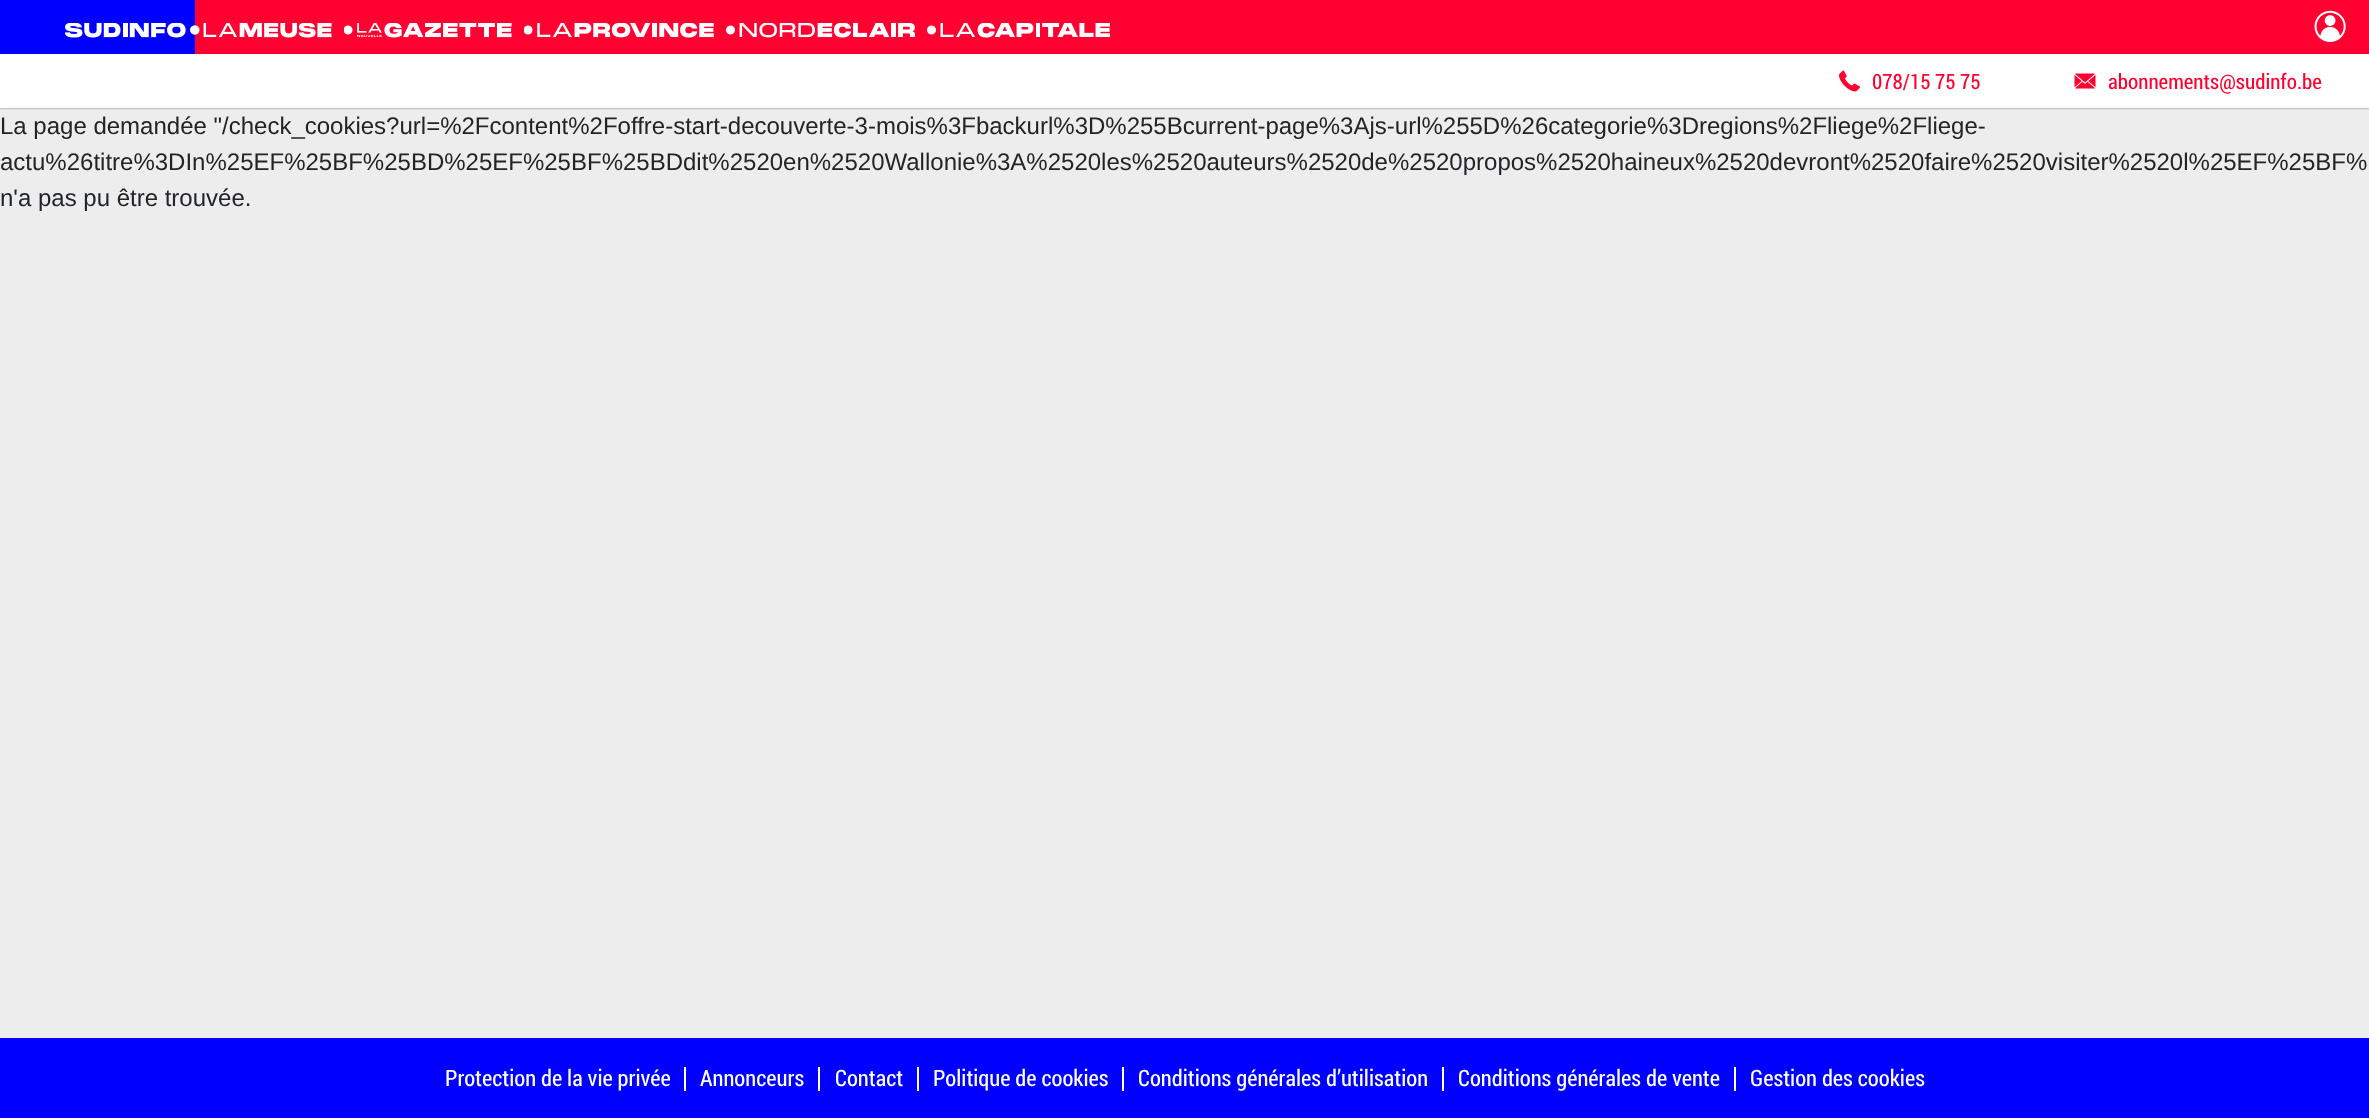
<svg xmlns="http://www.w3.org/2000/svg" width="2369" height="1118">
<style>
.a{font:21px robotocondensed;fill:#ff0030}
.b{font:24px Liberation Sans;fill:#212529}
.c{font:22.5px robotocondensed;fill:#fff}
</style>
<rect width="100%" height="100%" fill="#ededed"/>
<path fill="#707070" filter="blur(1px)" d="M0 0h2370v108H0z"/>
<path fill="#ff0030" d="M195 0h2174v54H195z"/>
<path fill="#fff" d="M0 54h2369v54H0z"/>
<path fill="#00f" d="M0 0h195v54H0z"/>
<image href="1.png" x="65" y="23" width="134" height="15"/>
<image href="2.png" x="191" y="23" width="141" height="15"/>
<image href="3.png" x="344" y="23" width="168" height="15"/>
<image href="4.png" x="524" y="23" width="190" height="15"/>
<image href="5.png" x="726" y="23" width="189" height="15"/>
<image href="6.png" x="927" y="23" width="183" height="15"/>
<image href="7.png" x="2314" y="10" width="32" height="32"/>
<image href="8.png" x="1839" y="70" width="21" height="22"/>
<image href="9.png" x="2074" y="73" width="22" height="16"/>
<path fill="#00f" d="M0 1038h2369v80H0z"/>
<path fill="#fff" d="M684 1067h2v24H684z"/>
<path fill="#fff" d="M818 1067h2v24H818z"/>
<path fill="#fff" d="M917 1067h2v24H917z"/>
<path fill="#fff" d="M1122 1067h2v24H1122z"/>
<path fill="#fff" d="M1442 1067h2v24H1442z"/>
<path fill="#fff" d="M1734 1067h2v24H1734z"/>
<text class="a" x="1872" y="89">078/15 75 75</text>
<text class="a" x="2108" y="89">abonnements@sudinfo.be</text>
<text class="b" x="0" y="134">La page demandée "/check_cookies?url=%2Fcontent%2Foffre-start-decouverte-3-mois%3Fbackurl%3D%255Bcurrent-page%3Ajs-url%255D%26categorie%3Dregions%2Fliege%2Fliege-</text>
<text class="b" x="0" y="170">actu%26titre%3DIn%25EF%25BF%25BD%25EF%25BF%25BDdit%2520en%2520Wallonie%3A%2520les%2520auteurs%2520de%2520propos%2520haineux%2520devront%2520faire%2520visiter%2520l%25EF%25BF%</text>
<text class="b" x="0" y="206">n'a pas pu être trouvée.</text>
<text class="c" x="445" y="1086">Protection de la vie privée</text>
<text class="c" x="700" y="1086">Annonceurs</text>
<text class="c" x="835" y="1086">Contact</text>
<text class="c" x="933" y="1086">Politique de cookies</text>
<text class="c" x="1138" y="1086">Conditions générales d’utilisation</text>
<text class="c" x="1458" y="1086">Conditions générales de vente</text>
<text class="c" x="1750" y="1086">Gestion des cookies</text>
</svg>
